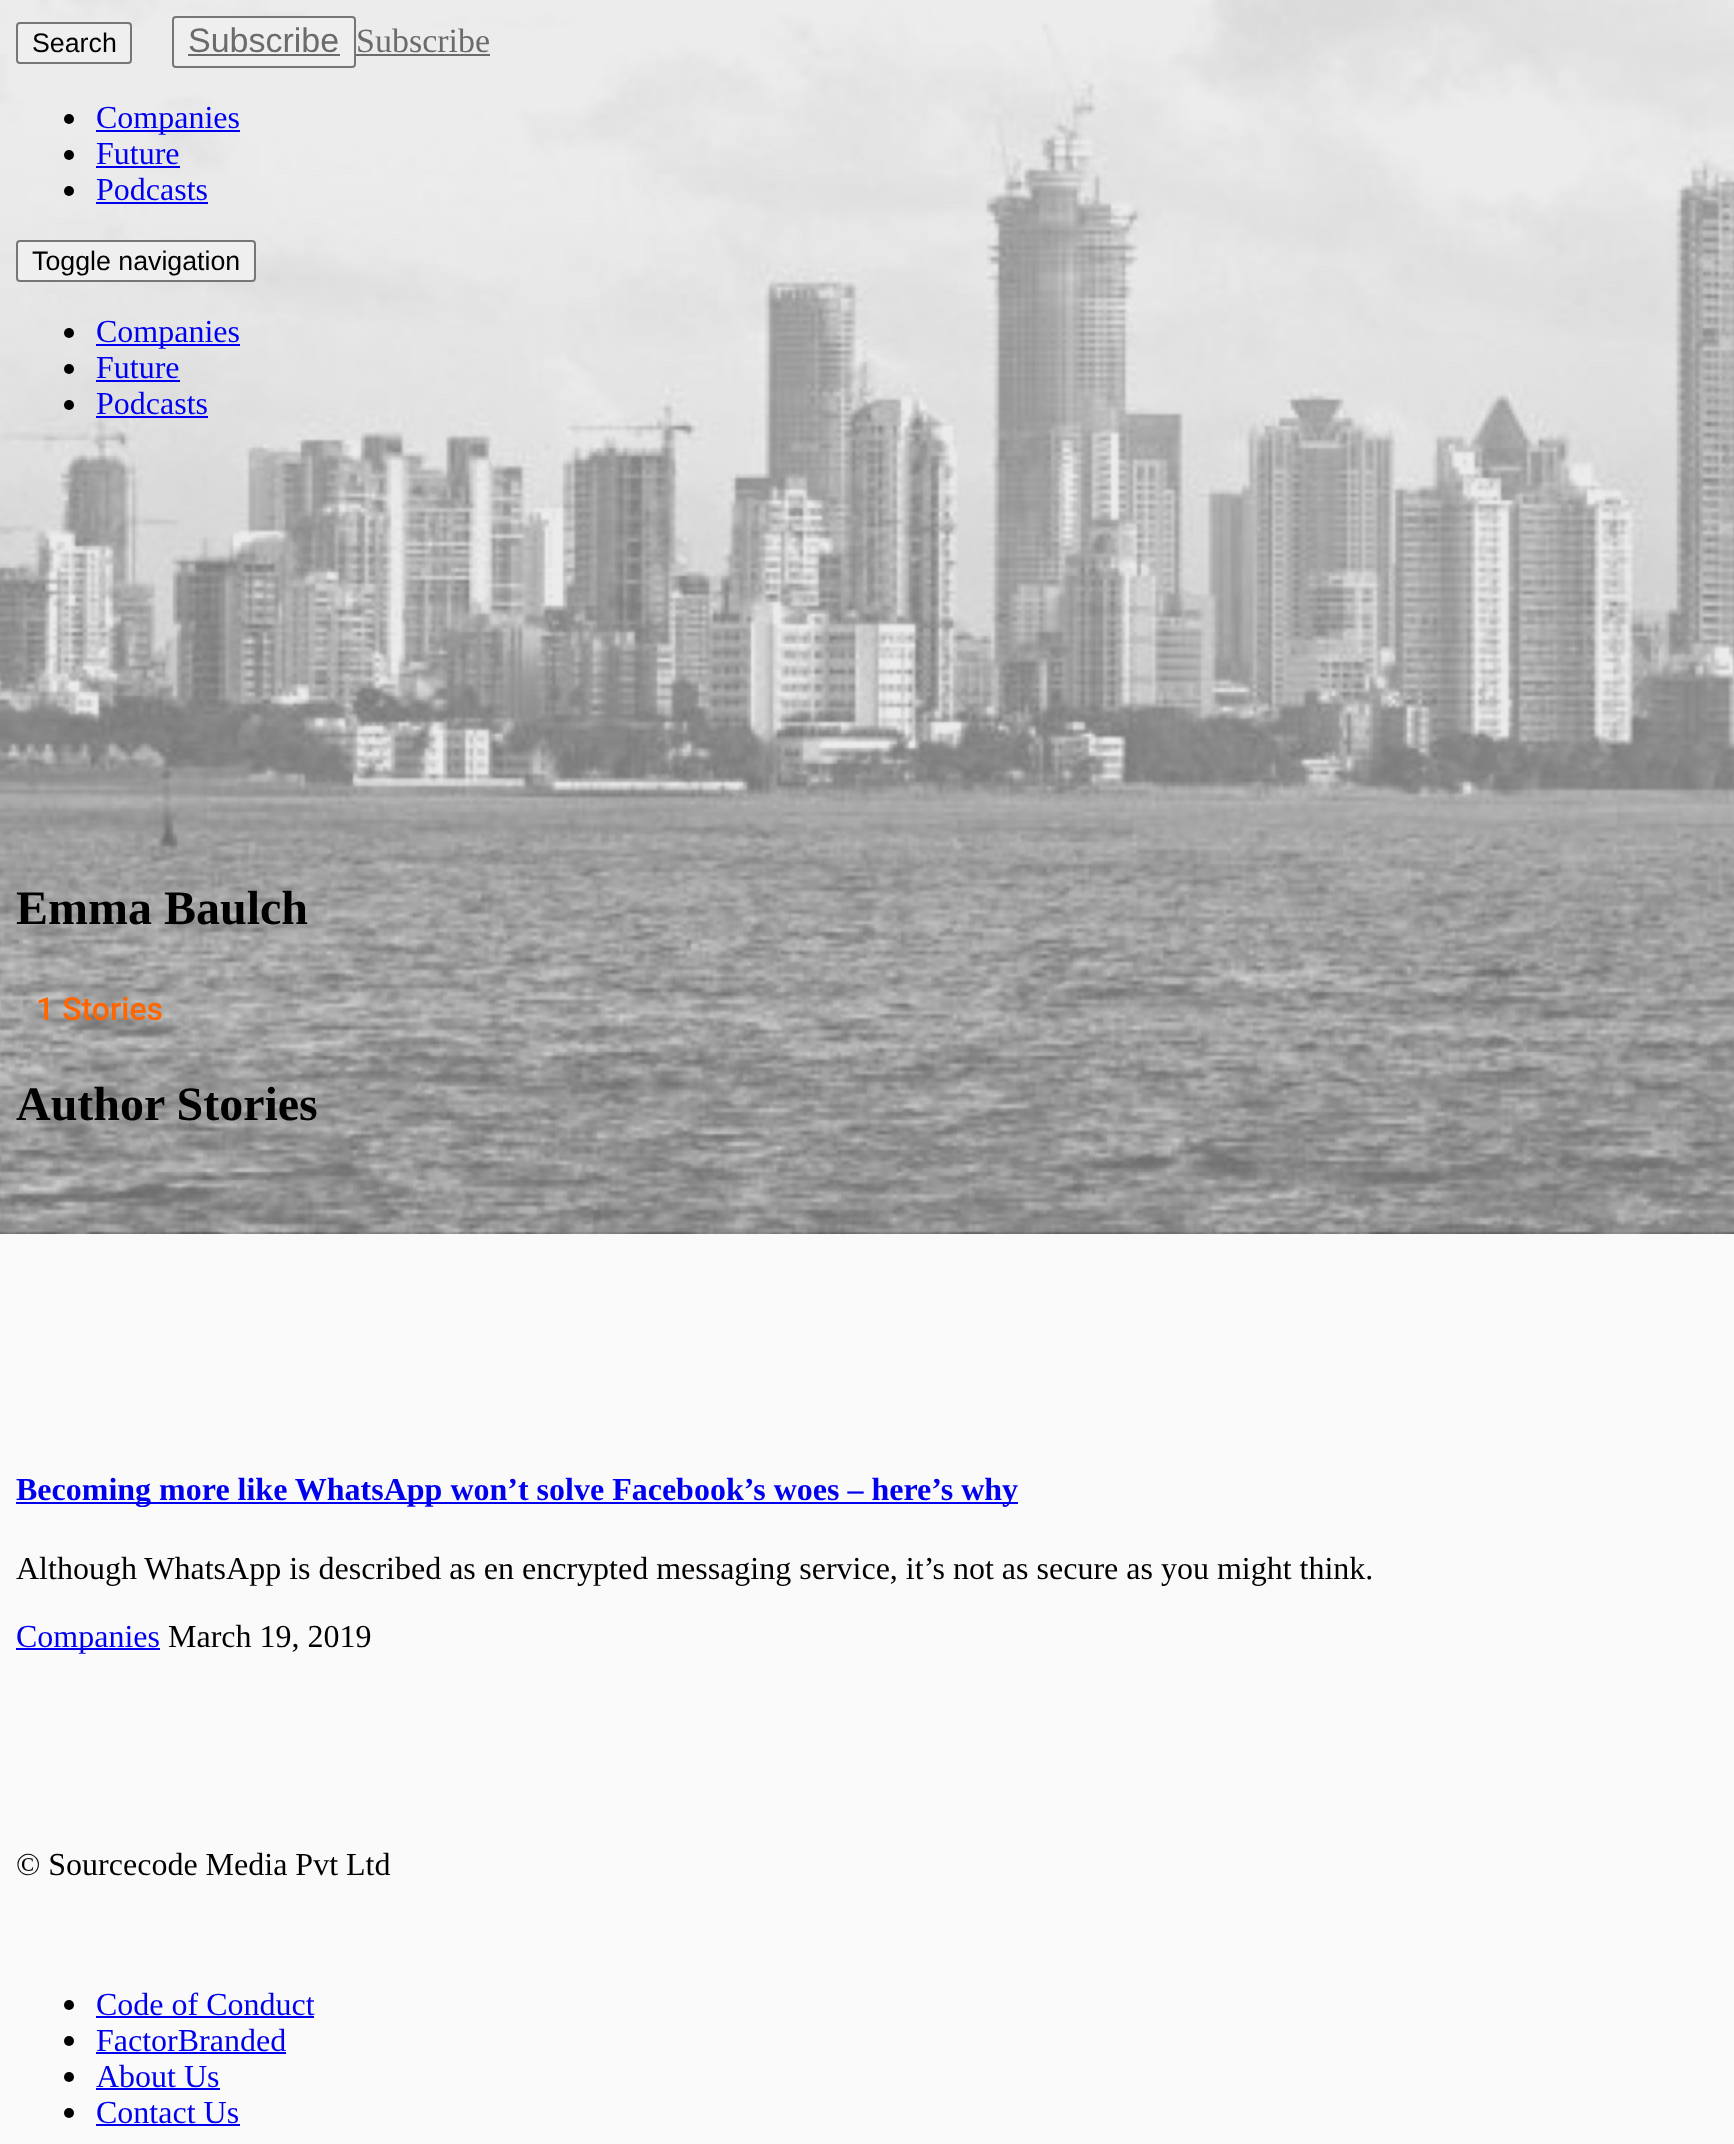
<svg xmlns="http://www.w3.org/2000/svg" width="1734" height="2144">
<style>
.a{font:26.75px Liberation Sans;fill:#000}
.b{font:34px Liberation Sans;fill:#6b6b6b}
.c{font:34px Liberation Serif;fill:#6b6b6b}
.d{font:32px Liberation Serif;fill:#00e}
.e{font:bold 48px Liberation Serif;fill:#000}
.f{font:500 32px Roboto;fill:#f60}
.g{font:bold 32px Liberation Serif;fill:#00e}
.h{font:32px Liberation Serif;fill:#000}
</style>
<rect width="100%" height="100%" fill="#fafafa"/>
<image href="1.png" x="0" y="0" width="1734" height="1234"/>
<rect fill="#efefef" stroke="#767676" stroke-width="2" x="17" y="23" width="114" height="40" rx="3"/>
<rect fill="#efefef" stroke="#767676" stroke-width="2" x="173" y="17" width="182" height="50" rx="3"/>
<path fill="#6b6b6b" d="M188 54h152v2H188z"/>
<path fill="#6b6b6b" d="M356 54h134v2H356z"/>
<circle fill="#000" cx="69" cy="119" r="5"/>
<path fill="#00e" d="M96 130h144v2H96z"/>
<circle fill="#000" cx="69" cy="155" r="5"/>
<path fill="#00e" d="M96 166h84v2H96z"/>
<circle fill="#000" cx="69" cy="191" r="5"/>
<path fill="#00e" d="M96 202h112v2H96z"/>
<rect fill="#efefef" stroke="#767676" stroke-width="2" x="17" y="241" width="238" height="40" rx="3"/>
<circle fill="#000" cx="69" cy="333" r="5"/>
<path fill="#00e" d="M96 344h144v2H96z"/>
<circle fill="#000" cx="69" cy="369" r="5"/>
<path fill="#00e" d="M96 380h84v2H96z"/>
<circle fill="#000" cx="69" cy="405" r="5"/>
<path fill="#00e" d="M96 416h112v2H96z"/>
<path fill="#00e" d="M16 1502h1002v2H16z"/>
<path fill="#00e" d="M16 1648h144v2H16z"/>
<circle fill="#000" cx="69" cy="2005" r="5"/>
<path fill="#00e" d="M96 2016h218v2H96z"/>
<circle fill="#000" cx="69" cy="2041" r="5"/>
<path fill="#00e" d="M96 2052h190v2H96z"/>
<circle fill="#000" cx="69" cy="2077" r="5"/>
<path fill="#00e" d="M96 2088h124v2H96z"/>
<circle fill="#000" cx="69" cy="2113" r="5"/>
<path fill="#00e" d="M96 2124h144v2H96z"/>
<text class="a" x="32" y="52">Search</text>
<text class="b" x="188" y="52">Subscribe</text>
<text class="c" x="356" y="52">Subscribe</text>
<text class="d" x="96" y="128">Companies</text>
<text class="d" x="96" y="164">Future</text>
<text class="d" x="96" y="200">Podcasts</text>
<text class="a" x="32" y="270">Toggle navigation</text>
<text class="d" x="96" y="342">Companies</text>
<text class="d" x="96" y="378">Future</text>
<text class="d" x="96" y="414">Podcasts</text>
<text class="e" x="16" y="924">Emma Baulch</text>
<text class="f" x="36" y="1020">1 Stories</text>
<text class="e" x="16" y="1120">Author Stories</text>
<text class="g" x="16" y="1500">Becoming more like WhatsApp won’t solve Facebook’s woes – here’s why</text>
<text class="h" x="16" y="1579">Although WhatsApp is described as en encrypted messaging service, it’s not as secure as you might think.</text>
<text class="d" x="16" y="1647">Companies</text>
<text class="h" x="168" y="1647">March 19, 2019</text>
<text class="h" x="16" y="1875">© Sourcecode Media Pvt Ltd</text>
<text class="d" x="96" y="2015">Code of Conduct</text>
<text class="d" x="96" y="2051">FactorBranded</text>
<text class="d" x="96" y="2087">About Us</text>
<text class="d" x="96" y="2123">Contact Us</text>
</svg>
